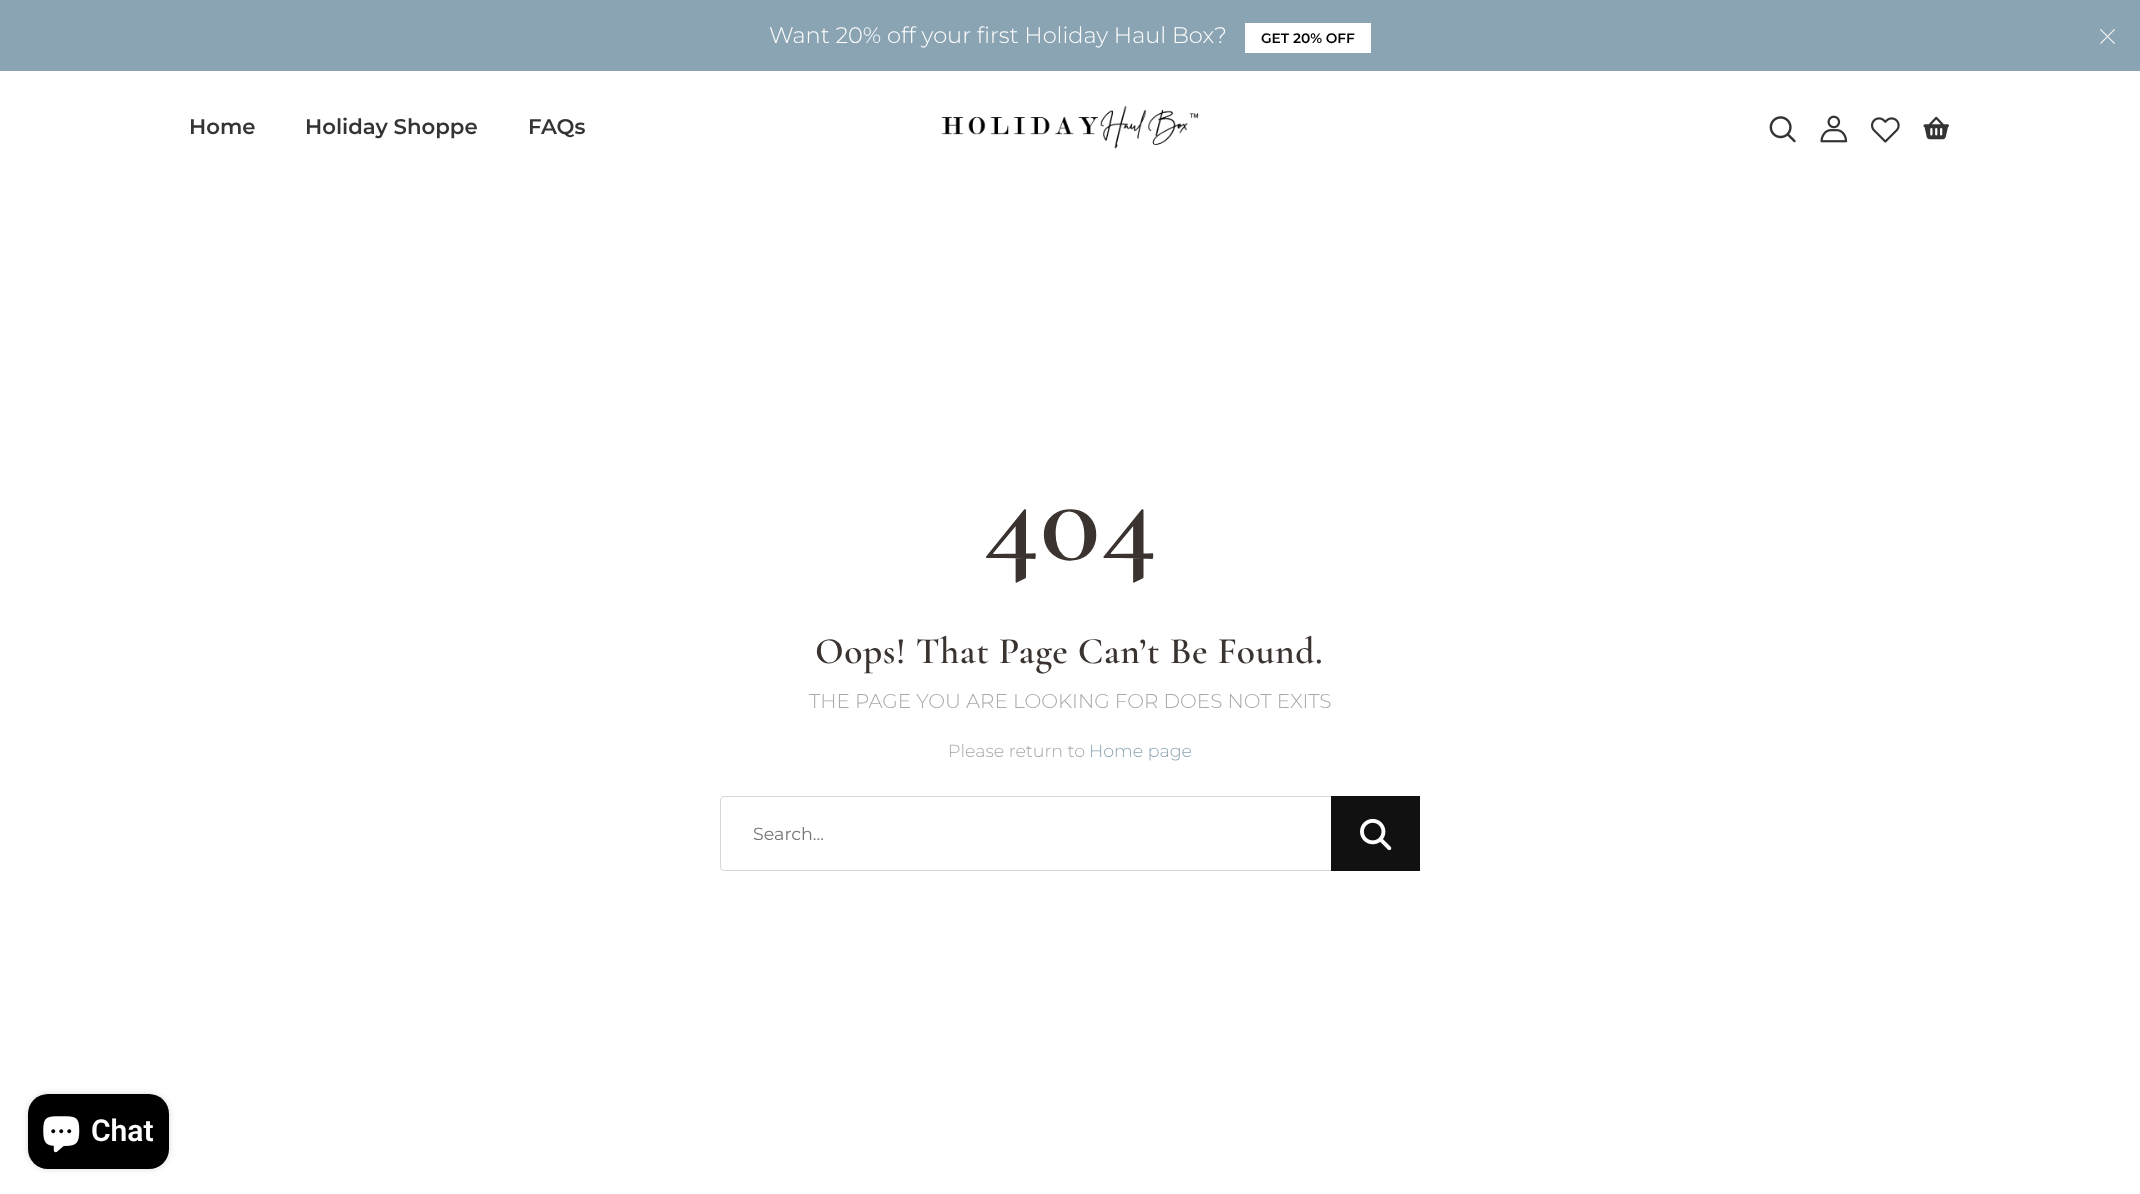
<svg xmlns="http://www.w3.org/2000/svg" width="2140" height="1194">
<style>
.a{font:300 22.5px Montserrat;fill:#fff}
.b{font:600 13.75px Montserrat;fill:#000}
.c{font:600 21.25px Montserrat;fill:#343434}
.d{font:600 125px Cormorant Garamond;letter-spacing:0.6px;fill:#3a3330}
.e{font:600 37.5px Cormorant Garamond;letter-spacing:0.6px;fill:#3a3330}
.f{font:300 20px Montserrat;fill:#a8a8a8}
.g{font:300 17.5px Montserrat;fill:#a8a8a8}
.h{font:300 17.5px Montserrat;fill:#8ba4b3}
.i{font:17.5px Montserrat;fill:#757575}
.j{font:600 30px Roboto;fill:#fff}
</style>
<rect width="100%" height="100%" fill="#fff"/>
<path fill="#8ba4b3" d="M0 0h2140v71H0z"/>
<path fill="#fff" d="M1245 23h126v30H1245z"/>
<image href="1.png" x="2100" y="29" width="15" height="15"/>
<image href="2.png" x="941" y="105" width="258" height="44"/>
<image href="3.png" x="1769" y="116" width="27" height="27"/>
<image href="4.png" x="1820" y="115" width="28" height="28"/>
<image href="5.png" x="1871" y="117" width="29" height="26"/>
<image href="6.png" x="1923" y="116" width="26" height="24"/>
<rect fill="none" stroke="#d6d6d6" x="720.5" y="796.5" width="699" height="74" rx="3.5"/>
<path fill="#111" d="M1331 796h89v75H1331z"/>
<image href="7.png" x="1360" y="818" width="32" height="33"/>
<rect fill="#00000026" filter="blur(3px)" x="28" y="1094" width="141" height="75" rx="20"/>
<rect fill="#000" x="28" y="1094" width="141" height="75" rx="20"/>
<image href="8.png" x="43" y="1116" width="37" height="37"/>
<text class="a" x="769" y="43">Want 20% off your first Holiday Haul Box?</text>
<text class="b" x="1261" y="43">GET 20% OFF</text>
<text class="c" x="189" y="134">Home</text>
<text class="c" x="305" y="134">Holiday Shoppe</text>
<text class="c" x="528" y="134">FAQs</text>
<text class="d" x="983" y="559">404</text>
<text class="e" x="815" y="663">Oops! That Page Can’t Be Found.</text>
<text class="f" x="809" y="708">THE PAGE YOU ARE LOOKING FOR DOES NOT EXITS</text>
<text class="g" x="948" y="757">Please return to</text>
<text class="h" x="1089" y="757">Home page</text>
<text class="i" x="753" y="840">Search...</text>
<text class="j" x="91" y="1141">Chat</text>
</svg>
